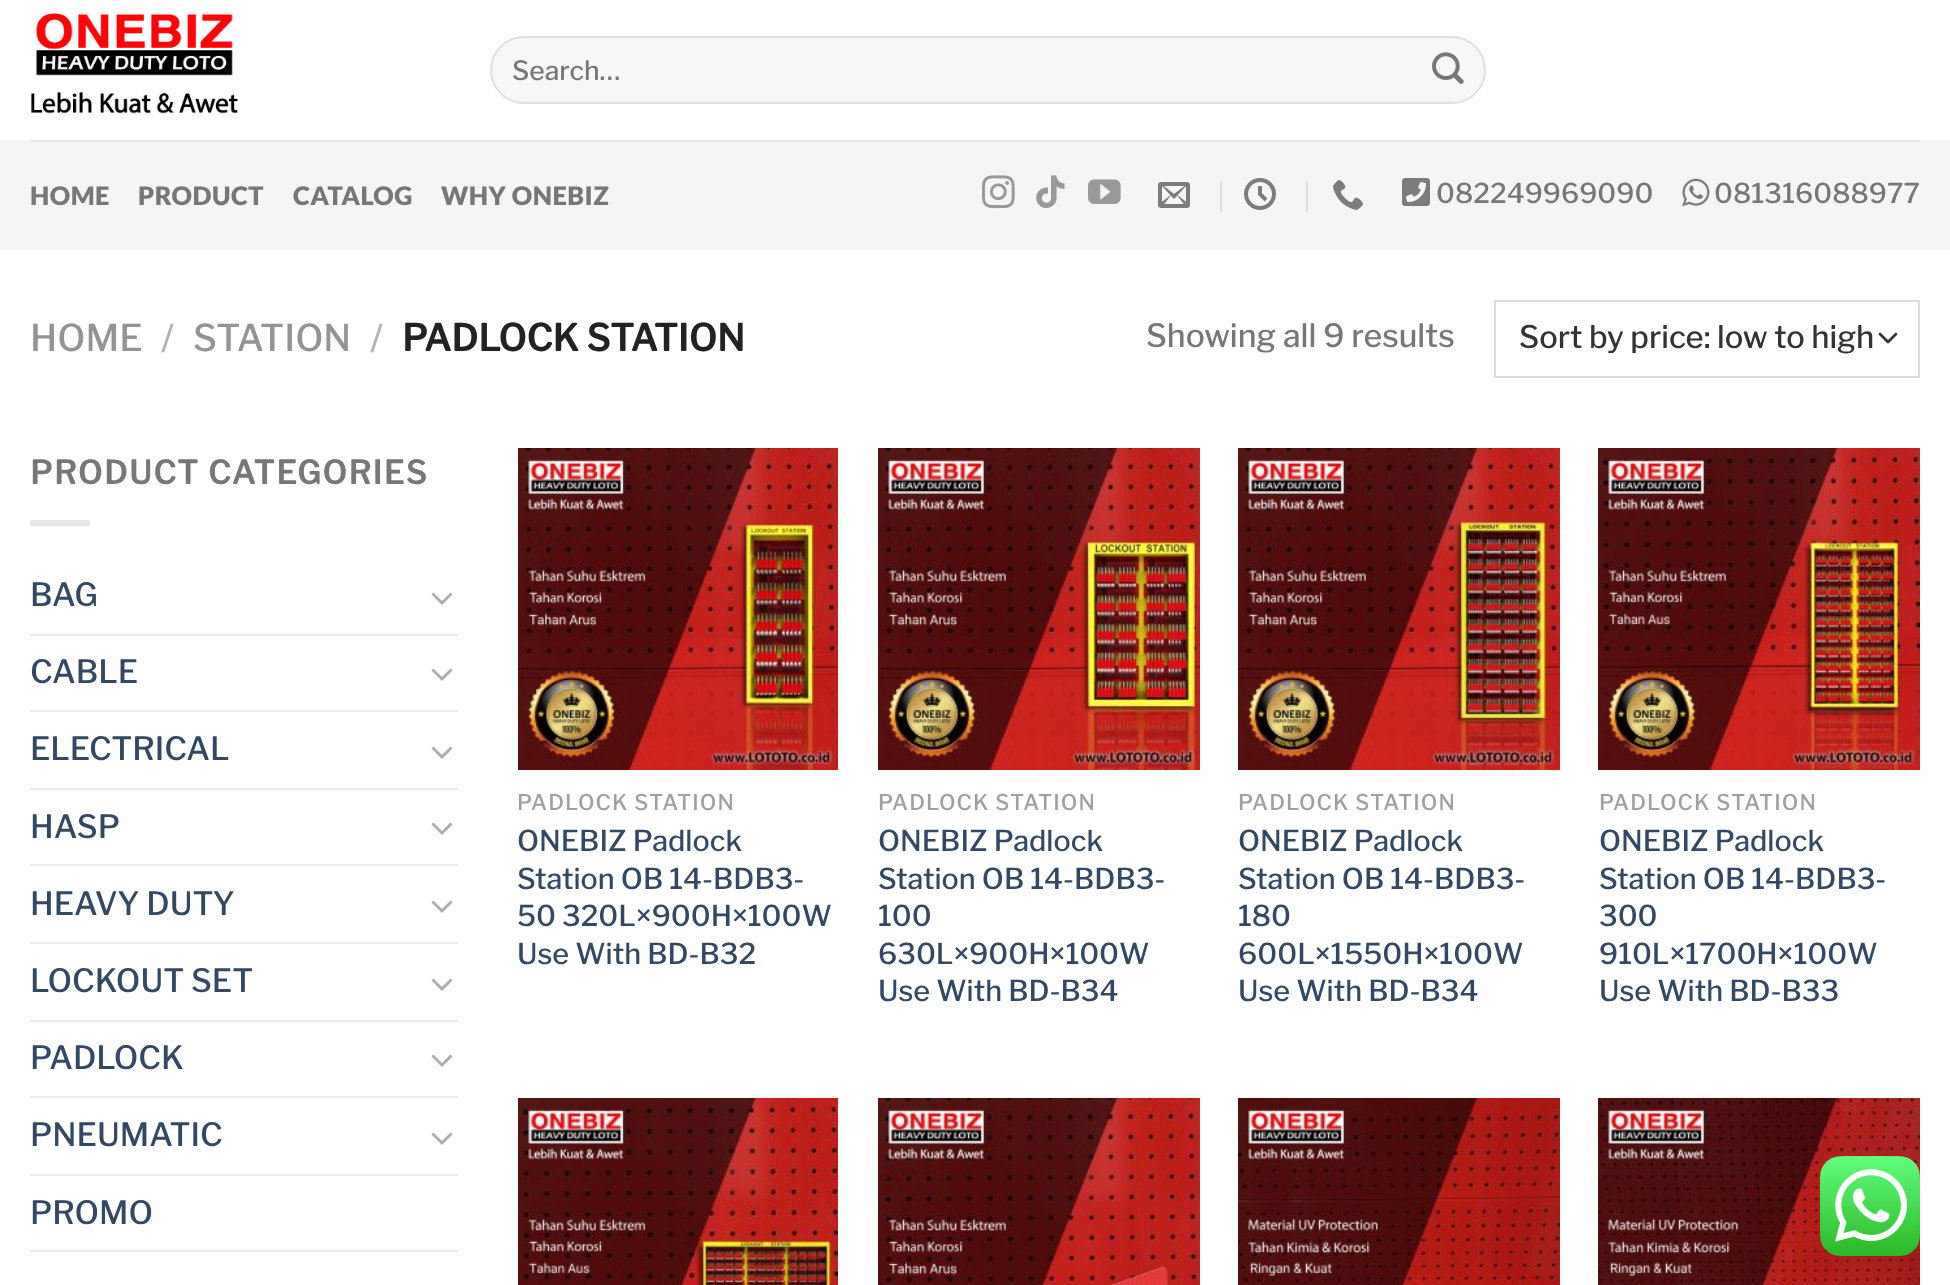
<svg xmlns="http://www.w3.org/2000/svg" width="1950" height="1285">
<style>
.a{font:500 26.5px Libre Franklin;fill:#777}
.b{font:900 25.5px Lato;letter-spacing:0.5px;fill:#777}
.c{font:500 27.25px Libre Franklin;fill:#777}
.d{font:500 36.75px Libre Franklin;fill:#949494}
.e{font:500 36.75px Libre Franklin;fill:#b2b2b2}
.f{font:bold 36.75px Libre Franklin;fill:#222}
.g{font:500 32px Libre Franklin;fill:#777}
.h{font:500 31px Libre Franklin;fill:#333}
.i{font:bold 32px Libre Franklin;letter-spacing:1.6px;fill:#777}
.j{font:500 32px Libre Franklin;fill:#334862}
.k{font:500 21.6px Libre Franklin;letter-spacing:1.1px;fill:#a0a0a0}
.l{font:500 28.75px Libre Franklin;fill:#334862}
</style>
<rect width="100%" height="100%" fill="#fff"/>
<image href="1.png" x="30" y="13" width="208" height="101"/>
<rect fill="#f7f7f7" x="490" y="36" width="996" height="68" rx="34"/>
<rect fill="none" stroke="#00000017" stroke-width="2" x="491" y="37" width="994" height="66" rx="33"/>
<image href="2.png" x="1432" y="52" width="32" height="32"/>
<path fill="#f5f5f5" d="M0 140h1950v110H0z"/>
<path fill="#e8e8e8" d="M30 140h1890v2H30z"/>
<image href="3.png" x="982" y="175" width="33" height="34"/>
<image href="4.png" x="1036" y="175" width="29" height="33"/>
<image href="5.png" x="1088" y="179" width="33" height="25"/>
<image href="6.png" x="1158" y="182" width="32" height="26"/>
<path fill="#ddd" d="M1220 182h2v30H1220z"/>
<image href="7.png" x="1244" y="178" width="32" height="32"/>
<path fill="#ddd" d="M1306 182h2v30H1306z"/>
<image href="8.png" x="1333" y="180" width="30" height="30"/>
<image href="9.png" x="1402" y="178" width="28" height="28"/>
<image href="10.png" x="1682" y="178" width="28" height="29"/>
<path fill="none" stroke="#333" stroke-width="2.7" stroke-linecap="round" stroke-linejoin="round" d="M1880 334l8 8l8-8"/>
<path fill="none" stroke="#ddd" stroke-width="2" d="M1495 301h424v76H1495z"/>
<path fill="#e6e6e6" d="M30 520h60v6H30z"/>
<image href="11.png" x="431" y="592" width="22" height="13"/>
<path fill="#ececec" d="M30 634h428v2H30z"/>
<image href="11.png" x="431" y="668" width="22" height="13"/>
<path fill="#ececec" d="M30 710h428v2H30z"/>
<image href="11.png" x="431" y="746" width="22" height="13"/>
<path fill="#ececec" d="M30 788h428v2H30z"/>
<image href="11.png" x="431" y="822" width="22" height="13"/>
<path fill="#ececec" d="M30 864h428v2H30z"/>
<image href="11.png" x="431" y="900" width="22" height="13"/>
<path fill="#ececec" d="M30 942h428v2H30z"/>
<image href="11.png" x="431" y="978" width="22" height="13"/>
<path fill="#ececec" d="M30 1020h428v2H30z"/>
<image href="11.png" x="431" y="1054" width="22" height="13"/>
<path fill="#ececec" d="M30 1096h428v2H30z"/>
<image href="11.png" x="431" y="1132" width="22" height="13"/>
<path fill="#ececec" d="M30 1174h428v2H30z"/>
<path fill="#ececec" d="M30 1250h428v2H30z"/>
<image href="12.png" x="518" y="448" width="320" height="322"/>
<image href="13.png" x="878" y="448" width="322" height="322"/>
<image href="14.png" x="1238" y="448" width="322" height="322"/>
<image href="15.png" x="1598" y="448" width="322" height="322"/>
<image href="16.png" x="518" y="1098" width="320" height="187"/>
<image href="17.png" x="878" y="1098" width="322" height="187"/>
<image href="18.png" x="1238" y="1098" width="322" height="187"/>
<image href="19.png" x="1598" y="1098" width="322" height="187"/>
<image href="20.png" x="1820" y="1156" width="100" height="100"/>
<text class="a" x="512" y="80">Search…</text>
<text class="b" x="30" y="205">HOME</text>
<text class="b" x="138" y="205">PRODUCT</text>
<text class="b" x="293" y="205">CATALOG</text>
<text class="b" x="441" y="205">WHY ONEBIZ</text>
<text class="c" x="1436" y="203">082249969090</text>
<text class="c" x="1714" y="203">081316088977</text>
<text class="d" x="30" y="351">HOME</text>
<text class="e" x="161" y="351">/</text>
<text class="d" x="193" y="351">STATION</text>
<text class="e" x="370" y="351">/</text>
<text class="f" x="402" y="351">PADLOCK STATION</text>
<text class="g" x="1146" y="347">Showing all 9 results</text>
<text class="h" x="1519" y="348">Sort by price: low to high</text>
<text class="i" x="30" y="484">PRODUCT CATEGORIES</text>
<text class="j" x="30" y="606">BAG</text>
<text class="j" x="30" y="683">CABLE</text>
<text class="j" x="30" y="760">ELECTRICAL</text>
<text class="j" x="30" y="838">HASP</text>
<text class="j" x="30" y="915">HEAVY DUTY</text>
<text class="j" x="30" y="992">LOCKOUT SET</text>
<text class="j" x="30" y="1069">PADLOCK</text>
<text class="j" x="30" y="1146">PNEUMATIC</text>
<text class="j" x="30" y="1224">PROMO</text>
<text class="k" x="517" y="810">PADLOCK STATION</text>
<text class="l" x="517" y="851">ONEBIZ Padlock</text>
<text class="l" x="517" y="889">Station OB 14-BDB3-</text>
<text class="l" x="517" y="926">50 320L×900H×100W</text>
<text class="l" x="517" y="964">Use With BD-B32</text>
<text class="k" x="878" y="810">PADLOCK STATION</text>
<text class="l" x="878" y="851">ONEBIZ Padlock</text>
<text class="l" x="878" y="889">Station OB 14-BDB3-</text>
<text class="l" x="878" y="926">100</text>
<text class="l" x="878" y="964">630L×900H×100W</text>
<text class="l" x="878" y="1001">Use With BD-B34</text>
<text class="k" x="1238" y="810">PADLOCK STATION</text>
<text class="l" x="1238" y="851">ONEBIZ Padlock</text>
<text class="l" x="1238" y="889">Station OB 14-BDB3-</text>
<text class="l" x="1238" y="926">180</text>
<text class="l" x="1238" y="964">600L×1550H×100W</text>
<text class="l" x="1238" y="1001">Use With BD-B34</text>
<text class="k" x="1599" y="810">PADLOCK STATION</text>
<text class="l" x="1599" y="851">ONEBIZ Padlock</text>
<text class="l" x="1599" y="889">Station OB 14-BDB3-</text>
<text class="l" x="1599" y="926">300</text>
<text class="l" x="1599" y="964">910L×1700H×100W</text>
<text class="l" x="1599" y="1001">Use With BD-B33</text>
</svg>
